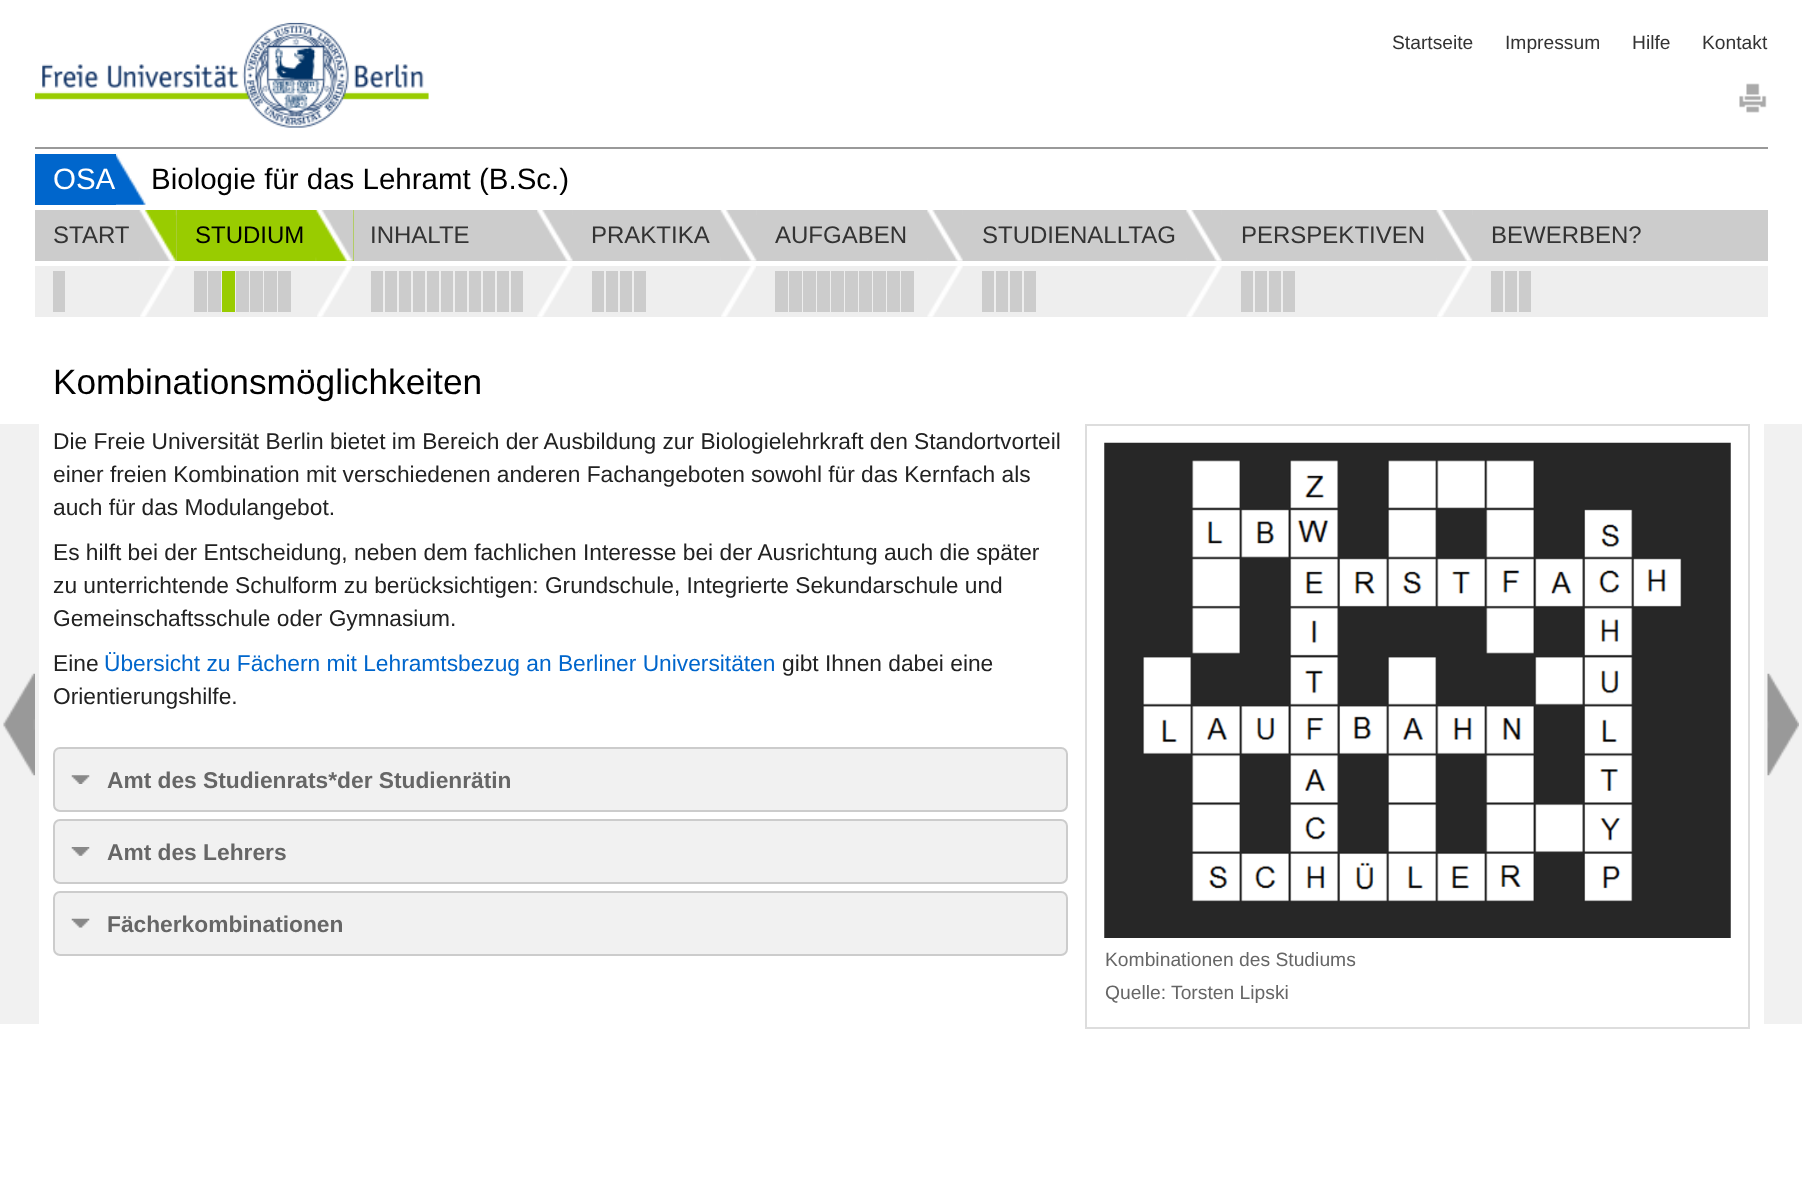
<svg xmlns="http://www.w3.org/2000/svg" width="1802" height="1192">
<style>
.a{font:19.25px Liberation Sans;fill:#333}
.b{font:29.5px Liberation Sans;fill:#fff}
.c{font:29.5px Liberation Sans;fill:#000}
.d{font:24px Liberation Sans;fill:#333}
.e{font:24px Liberation Sans;fill:#000}
.f{font:35.25px Liberation Sans;fill:#000}
.g{font:22.75px Liberation Sans;fill:#222}
.h{font:22.75px Liberation Sans;fill:#06c}
.i{font:bold 22.75px Liberation Sans;fill:#666}
.j{font:19.3px Liberation Sans;fill:#666}
</style>
<rect width="100%" height="100%" fill="#fff"/>
<image href="1.png" x="35" y="22" width="394" height="106"/>
<image href="2.png" x="1739" y="83" width="28" height="30"/>
<path fill="#999" d="M35 147h1733v2H35z"/>
<image href="3.png" x="116" y="154" width="30" height="51"/>
<path fill="#06c" d="M35 154h81v51H35z"/>
<path fill="#ccc" d="M35 210h1733v51H35z"/>
<image href="4.png" x="139" y="210" width="38" height="51"/>
<path fill="#eee" d="M35 266h1733v51H35z"/>
<image href="5.png" x="140" y="266" width="35" height="51"/>
<path fill="#ccc" d="M53 271h12v41H53z"/>
<path fill="#9c0" d="M177 210h177v51H177z"/>
<image href="6.png" x="315" y="210" width="39" height="51"/>
<image href="7.png" x="317" y="266" width="35" height="51"/>
<path fill="#ccc" d="M194 271h13v41H194z"/>
<path fill="#ccc" d="M208 271h13v41H208z"/>
<path fill="#9c0" d="M222 271h13v41H222z"/>
<path fill="#ccc" d="M236 271h13v41H236z"/>
<path fill="#ccc" d="M250 271h13v41H250z"/>
<path fill="#ccc" d="M264 271h13v41H264z"/>
<path fill="#ccc" d="M278 271h13v41H278z"/>
<image href="8.png" x="537" y="210" width="36" height="51"/>
<image href="9.png" x="537" y="266" width="36" height="51"/>
<path fill="#ccc" d="M371 271h12v41H371z"/>
<path fill="#ccc" d="M385 271h12v41H385z"/>
<path fill="#ccc" d="M399 271h12v41H399z"/>
<path fill="#ccc" d="M413 271h12v41H413z"/>
<path fill="#ccc" d="M427 271h12v41H427z"/>
<path fill="#ccc" d="M441 271h12v41H441z"/>
<path fill="#ccc" d="M455 271h12v41H455z"/>
<path fill="#ccc" d="M469 271h12v41H469z"/>
<path fill="#ccc" d="M483 271h12v41H483z"/>
<path fill="#ccc" d="M497 271h12v41H497z"/>
<path fill="#ccc" d="M511 271h12v41H511z"/>
<image href="10.png" x="720" y="210" width="37" height="51"/>
<image href="11.png" x="721" y="266" width="35" height="51"/>
<path fill="#ccc" d="M592 271h12v41H592z"/>
<path fill="#ccc" d="M606 271h12v41H606z"/>
<path fill="#ccc" d="M620 271h12v41H620z"/>
<path fill="#ccc" d="M634 271h12v41H634z"/>
<image href="12.png" x="927" y="210" width="36" height="51"/>
<image href="13.png" x="927" y="266" width="36" height="51"/>
<path fill="#ccc" d="M775 271h13v41H775z"/>
<path fill="#ccc" d="M789 271h13v41H789z"/>
<path fill="#ccc" d="M803 271h13v41H803z"/>
<path fill="#ccc" d="M817 271h13v41H817z"/>
<path fill="#ccc" d="M831 271h13v41H831z"/>
<path fill="#ccc" d="M845 271h13v41H845z"/>
<path fill="#ccc" d="M859 271h13v41H859z"/>
<path fill="#ccc" d="M873 271h13v41H873z"/>
<path fill="#ccc" d="M887 271h13v41H887z"/>
<path fill="#ccc" d="M901 271h13v41H901z"/>
<image href="12.png" x="1186" y="210" width="36" height="51"/>
<image href="13.png" x="1186" y="266" width="36" height="51"/>
<path fill="#ccc" d="M982 271h12v41H982z"/>
<path fill="#ccc" d="M996 271h12v41H996z"/>
<path fill="#ccc" d="M1010 271h12v41H1010z"/>
<path fill="#ccc" d="M1024 271h12v41H1024z"/>
<image href="14.png" x="1436" y="210" width="37" height="51"/>
<image href="15.png" x="1437" y="266" width="35" height="51"/>
<path fill="#ccc" d="M1241 271h12v41H1241z"/>
<path fill="#ccc" d="M1255 271h12v41H1255z"/>
<path fill="#ccc" d="M1269 271h12v41H1269z"/>
<path fill="#ccc" d="M1283 271h12v41H1283z"/>
<path fill="#ccc" d="M1491 271h12v41H1491z"/>
<path fill="#ccc" d="M1505 271h12v41H1505z"/>
<path fill="#ccc" d="M1519 271h12v41H1519z"/>
<path fill="#f1f1f1" d="M0 424h39v600H0z"/>
<image href="16.png" x="3" y="673" width="32" height="103"/>
<path fill="#f1f1f1" d="M1764 424h38v600H1764z"/>
<image href="17.png" x="1767" y="673" width="32" height="103"/>
<rect fill="#f1f1f1" stroke="#ccc" stroke-width="2" x="54" y="748" width="1013" height="63" rx="6"/>
<image href="18.png" x="71" y="775" width="19" height="9"/>
<rect fill="#f1f1f1" stroke="#ccc" stroke-width="2" x="54" y="820" width="1013" height="63" rx="6"/>
<image href="19.png" x="71" y="847" width="19" height="9"/>
<rect fill="#f1f1f1" stroke="#ccc" stroke-width="2" x="54" y="892" width="1013" height="63" rx="6"/>
<image href="20.png" x="71" y="918" width="19" height="10"/>
<path fill="none" stroke="#ddd" stroke-width="2" d="M1086 425h663v603H1086z"/>
<image href="21.png" x="1104" y="442" width="627" height="496"/>
<text class="a" x="1392" y="49">Startseite</text>
<text class="a" x="1505" y="49">Impressum</text>
<text class="a" x="1632" y="49">Hilfe</text>
<text class="a" x="1702" y="49">Kontakt</text>
<text class="b" x="53" y="189">OSA</text>
<text class="c" x="151" y="189">Biologie für das Lehramt (B.Sc.)</text>
<text class="d" x="53" y="243">START</text>
<text class="e" x="195" y="243">STUDIUM</text>
<text class="d" x="370" y="243">INHALTE</text>
<text class="d" x="591" y="243">PRAKTIKA</text>
<text class="d" x="775" y="243">AUFGABEN</text>
<text class="d" x="982" y="243">STUDIENALLTAG</text>
<text class="d" x="1241" y="243">PERSPEKTIVEN</text>
<text class="d" x="1491" y="243">BEWERBEN?</text>
<text class="f" x="53" y="394">Kombinationsmöglichkeiten</text>
<text class="g" x="53" y="449">Die Freie Universität Berlin bietet im Bereich der Ausbildung zur Biologielehrkraft den Standortvorteil</text>
<text class="g" x="53" y="482">einer freien Kombination mit verschiedenen anderen Fachangeboten sowohl für das Kernfach als</text>
<text class="g" x="53" y="515">auch für das Modulangebot.</text>
<text class="g" x="53" y="560">Es hilft bei der Entscheidung, neben dem fachlichen Interesse bei der Ausrichtung auch die später</text>
<text class="g" x="53" y="593">zu unterrichtende Schulform zu berücksichtigen: Grundschule, Integrierte Sekundarschule und</text>
<text class="g" x="53" y="626">Gemeinschaftsschule oder Gymnasium.</text>
<text class="g" x="53" y="671">Eine</text>
<text class="h" x="104" y="671">Übersicht zu Fächern mit Lehramtsbezug an Berliner Universitäten</text>
<text class="g" x="782" y="671">gibt Ihnen dabei eine</text>
<text class="g" x="53" y="704">Orientierungshilfe.</text>
<text class="i" x="107" y="788">Amt des Studienrats*der Studienrätin</text>
<text class="i" x="107" y="860">Amt des Lehrers</text>
<text class="i" x="107" y="932">Fächerkombinationen</text>
<text class="j" x="1105" y="966">Kombinationen des Studiums</text>
<text class="j" x="1105" y="999">Quelle:</text>
<text class="j" x="1171" y="999">Torsten Lipski</text>
</svg>
